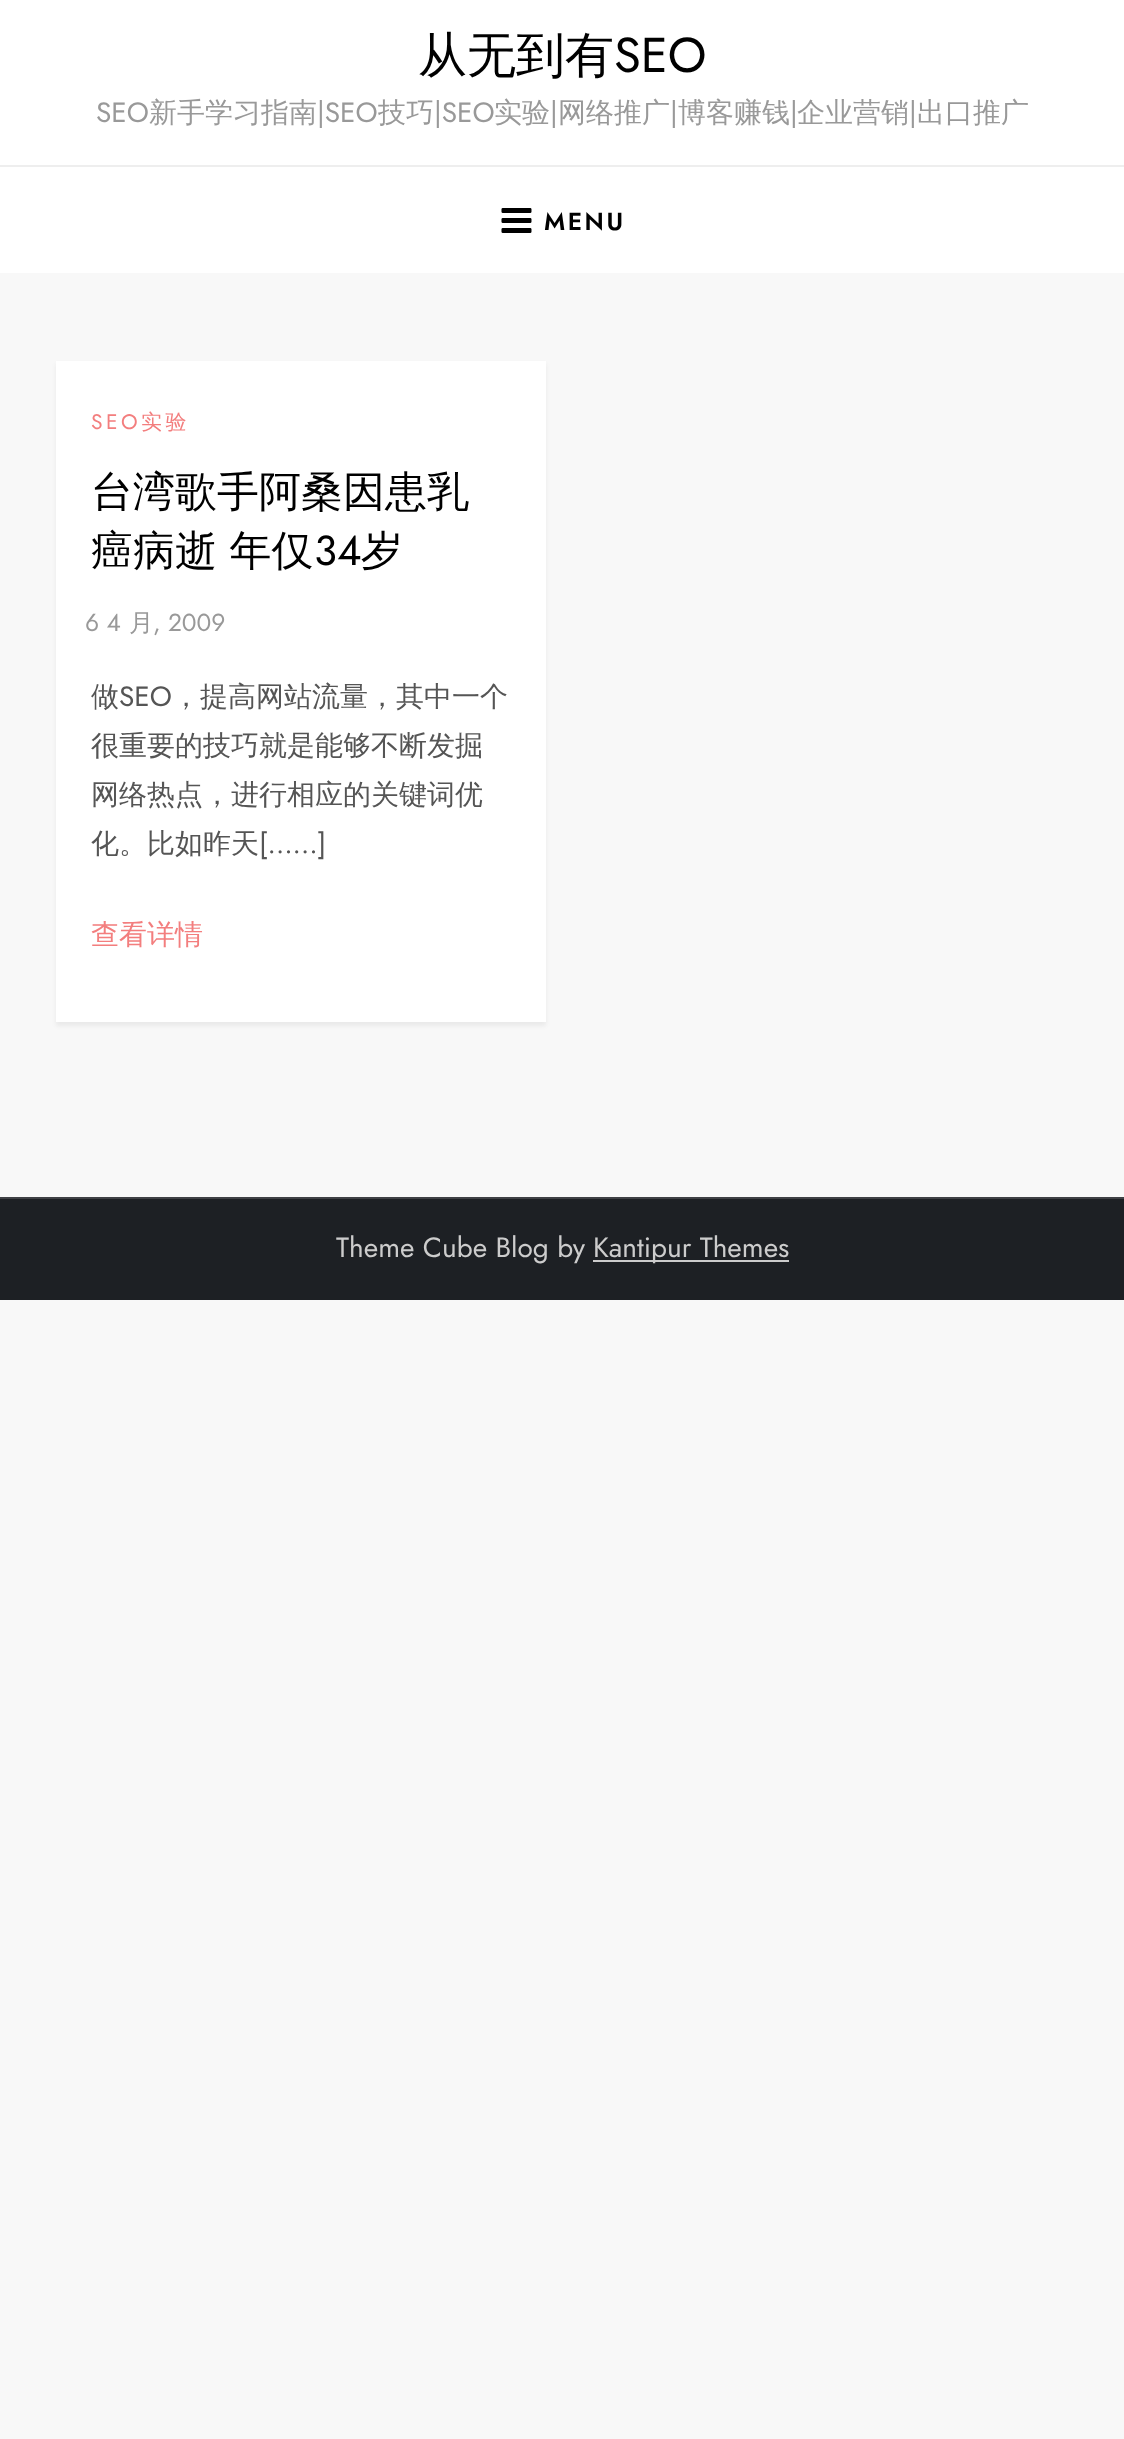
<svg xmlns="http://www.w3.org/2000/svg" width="1124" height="2439">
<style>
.a{font:500 49px WenQuanYi Zen Hei;fill:#000}
.b{font:49px Jost;fill:#000}
.c{font:28px Jost;fill:#999}
.d{font:500 28px WenQuanYi Zen Hei;fill:#999}
.e{font:600 24.5px Jost;letter-spacing:2.5px;fill:#000}
.f{font:21px Jost;letter-spacing:3.5px;fill:#f37e7e}
.g{font:500 21px WenQuanYi Zen Hei;letter-spacing:3.5px;fill:#f37e7e}
.h{font:500 42px WenQuanYi Zen Hei;fill:#000}
.i{font:42px Jost;fill:#000}
.j{font:24.5px Jost;fill:#999}
.k{font:500 24.5px WenQuanYi Zen Hei;fill:#999}
.l{font:500 28px WenQuanYi Zen Hei;fill:#555}
.m{font:28px Jost;fill:#555}
.n{font:500 28px WenQuanYi Zen Hei;fill:#f37e7e}
.o{font:28px Jost;fill:#ccc}
</style>
<rect width="100%" height="100%" fill="#f8f8f8"/>
<path fill="#fff" d="M0 0h1124v273H0z"/>
<path fill="#eee" d="M0 165h1124v2H0z"/>
<image href="1.png" x="501" y="208" width="31" height="25"/>
<path fill="#0000000f" filter="blur(2px)" d="M56 364h490v662H56z"/>
<path fill="#fff" d="M56 361h490v661H56z"/>
<path fill="#1d2024" d="M0 1199h1124v101H0z"/>
<path fill="#3f4145" d="M0 1197h1124v2H0z"/>
<path fill="#ccc" d="M593 1260h196v2H593z"/>
<text class="a" x="418" y="72">从无到有</text>
<text class="b" x="614" y="72">SEO</text>
<text class="c" x="96" y="122">SEO</text>
<text class="d" x="149" y="122">新手学习指南</text>
<text class="c" x="317" y="122">|SEO</text>
<text class="d" x="378" y="122">技巧</text>
<text class="c" x="434" y="122">|SEO</text>
<text class="d" x="494" y="122">实验</text>
<text class="c" x="550" y="122">|</text>
<text class="d" x="558" y="122">网络推广</text>
<text class="c" x="670" y="122">|</text>
<text class="d" x="678" y="122">博客赚钱</text>
<text class="c" x="790" y="122">|</text>
<text class="d" x="797" y="122">企业营销</text>
<text class="c" x="909" y="122">|</text>
<text class="d" x="917" y="122">出口推广</text>
<text class="e" x="544" y="230">MENU</text>
<text class="f" x="91" y="429">SEO</text>
<text class="g" x="141" y="429">实验</text>
<text class="h" x="91" y="506">台湾歌手阿桑因患乳</text>
<text class="h" x="91" y="565">癌病逝 年仅</text>
<text class="i" x="314" y="565">34</text>
<text class="h" x="361" y="565">岁</text>
<text class="j" x="85" y="631">6 4</text>
<text class="k" x="129" y="631">月</text>
<text class="j" x="153" y="631">, 2009</text>
<text class="l" x="91" y="706">做</text>
<text class="m" x="119" y="706">SEO</text>
<text class="l" x="172" y="706">，提高网站流量，其中一个</text>
<text class="l" x="91" y="755">很重要的技巧就是能够不断发掘</text>
<text class="l" x="91" y="804">网络热点，进行相应的关键词优</text>
<text class="l" x="91" y="853">化。比如昨天</text>
<text class="m" x="259" y="853">[……]</text>
<text class="n" x="91" y="944">查看详情</text>
<text class="o" x="336" y="1257">Theme Cube Blog by</text>
<text class="o" x="593" y="1257">Kantipur Themes</text>
</svg>
